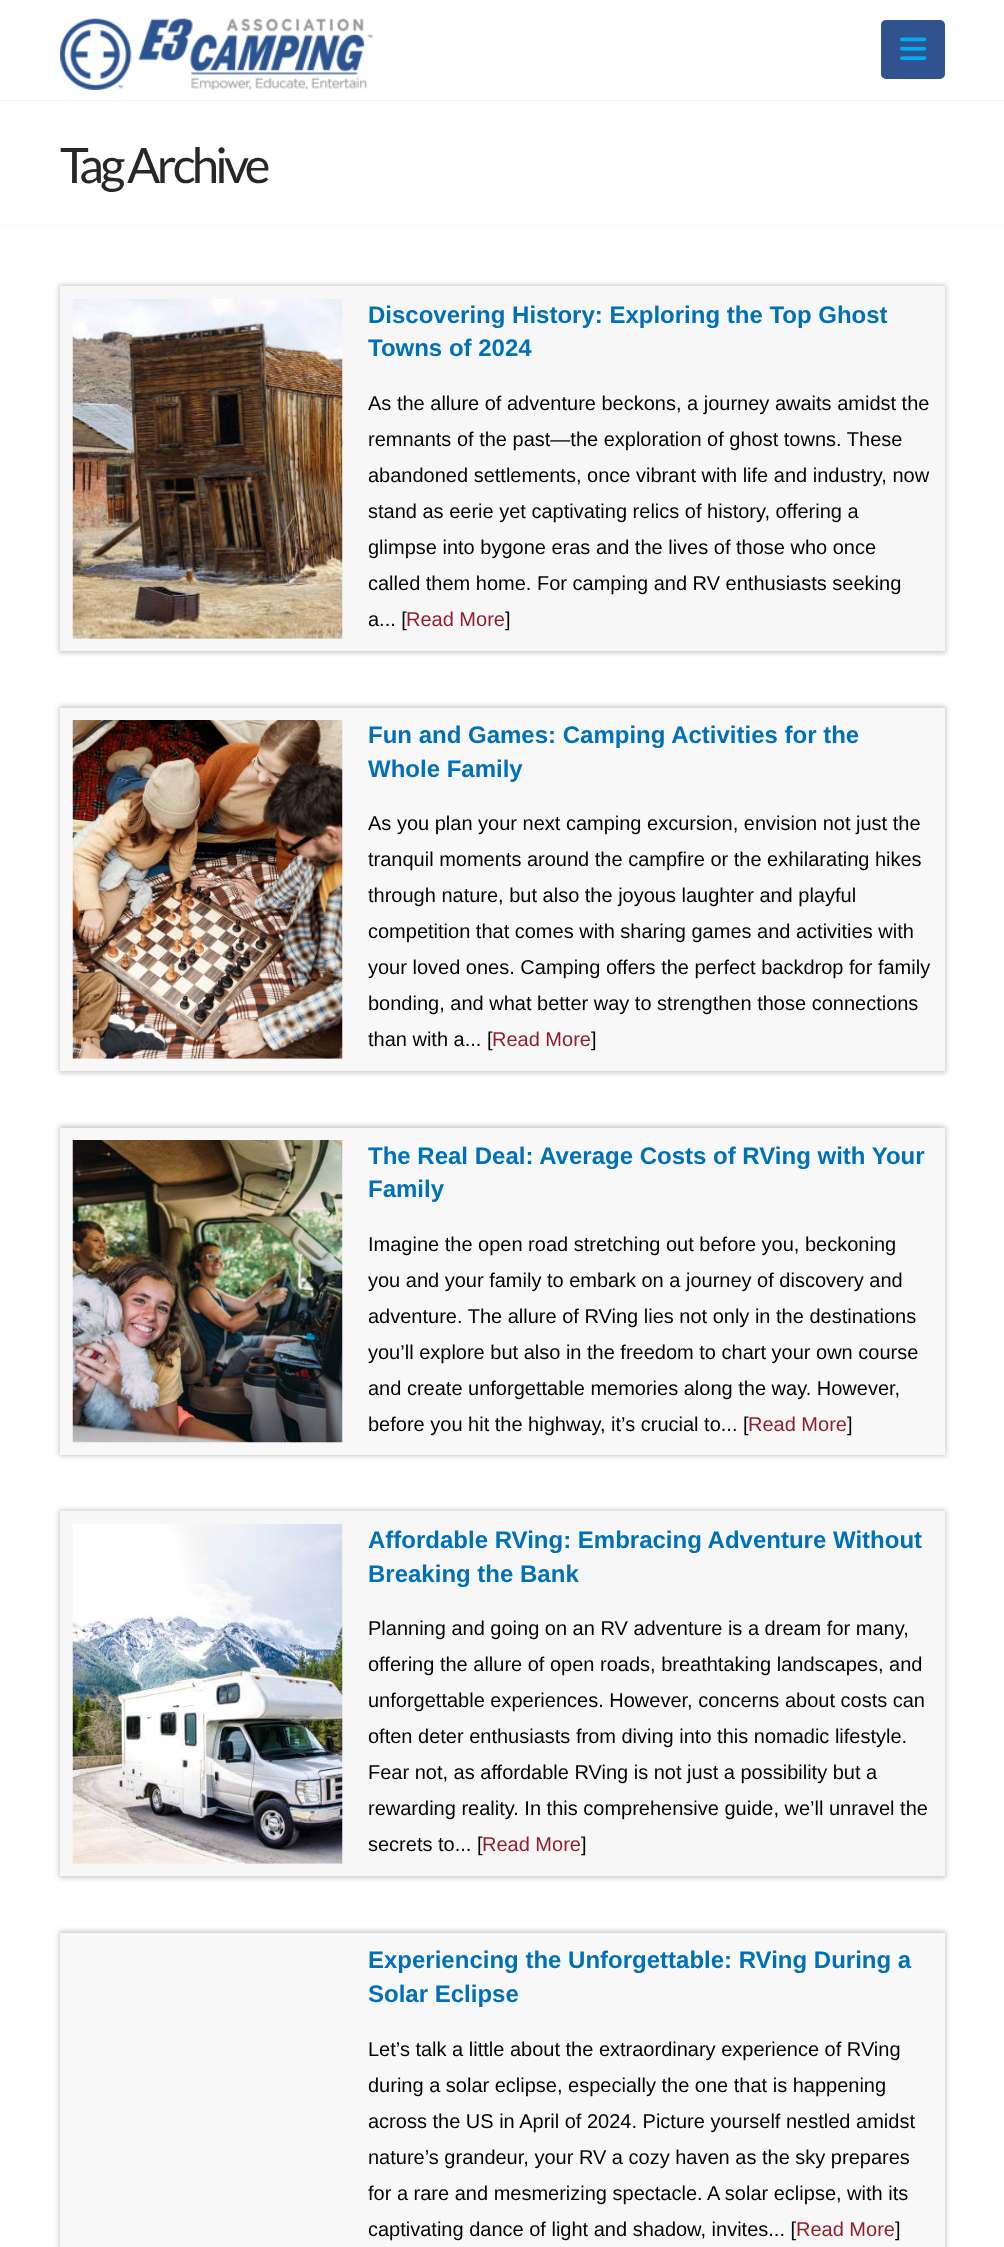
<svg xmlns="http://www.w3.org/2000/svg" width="1004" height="2247">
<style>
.a{font:49px Lato;letter-spacing:-3.75px;fill:#272727}
.b{font:bold 24px Liberation Sans;fill:#0070b9}
.c{font:20px Liberation Sans;fill:#000}
.d{font:20px Liberation Sans;fill:#931d2d}
</style>
<defs>
<clipPath id="clip1"><path d="M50 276h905v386h-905zm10 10h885v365h-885z" clip-rule="evenodd"/></clipPath>
<clipPath id="clip2"><path d="M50 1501h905v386h-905zm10 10h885v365h-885z" clip-rule="evenodd"/></clipPath>
</defs>
<rect width="100%" height="100%" fill="#fff"/>
<image href="1.png" x="60" y="18" width="313" height="72"/>
<rect fill="#2f538f" x="881" y="20" width="64" height="59" rx="5"/>
<image href="2.png" x="900" y="37" width="27" height="23"/>
<path fill="#f2f2f2" d="M0 100h1004v1H0z"/>
<path fill="#f2f2f2" d="M0 225h1004v1H0z"/>
<g clip-path="url(#clip1)">
<path fill="#00000036" filter="blur(2.5px)" d="M59 285h887v368H59z"/>
</g>
<path fill="#00000008" d="M60 286h885v365H60z"/>
<image href="3.png" x="72" y="299" width="271" height="340"/>
<path fill="#00000036" filter="blur(2.5px)" d="M59 706h887v367H59z"/>
<path fill="#f8f8f8" d="M60 708h885v363H60z"/>
<image href="4.png" x="72" y="720" width="271" height="339"/>
<path fill="#00000036" filter="blur(2.5px)" d="M59 1126h887v330H59z"/>
<path fill="#f8f8f8" d="M60 1128h885v327H60z"/>
<image href="5.png" x="72" y="1140" width="271" height="303"/>
<g clip-path="url(#clip2)">
<path fill="#00000036" filter="blur(2.5px)" d="M59 1510h887v368H59z"/>
</g>
<path fill="#00000008" d="M60 1511h885v365H60z"/>
<image href="6.png" x="72" y="1524" width="271" height="340"/>
<path fill="#00000036" filter="blur(2.5px)" d="M59 1931h887v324H59z"/>
<path fill="#f8f8f8" d="M60 1933h885v314H60z"/>
<text class="a" x="60" y="183">Tag Archive</text>
<text class="b" x="368" y="323">Discovering History: Exploring the Top Ghost</text>
<text class="b" x="368" y="356">Towns of 2024</text>
<text class="c" x="368" y="410">As the allure of adventure beckons, a journey awaits amidst the</text>
<text class="c" x="368" y="446">remnants of the past—the exploration of ghost towns. These</text>
<text class="c" x="368" y="482">abandoned settlements, once vibrant with life and industry, now</text>
<text class="c" x="368" y="518">stand as eerie yet captivating relics of history, offering a</text>
<text class="c" x="368" y="554">glimpse into bygone eras and the lives of those who once</text>
<text class="c" x="368" y="590">called them home. For camping and RV enthusiasts seeking</text>
<text class="c" x="368" y="626">a... [</text>
<text class="d" x="406" y="626">Read More</text>
<text class="c" x="505" y="626">]</text>
<text class="b" x="368" y="743">Fun and Games: Camping Activities for the</text>
<text class="b" x="368" y="777">Whole Family</text>
<text class="c" x="368" y="830">As you plan your next camping excursion, envision not just the</text>
<text class="c" x="368" y="866">tranquil moments around the campfire or the exhilarating hikes</text>
<text class="c" x="368" y="902">through nature, but also the joyous laughter and playful</text>
<text class="c" x="368" y="938">competition that comes with sharing games and activities with</text>
<text class="c" x="368" y="974">your loved ones. Camping offers the perfect backdrop for family</text>
<text class="c" x="368" y="1010">bonding, and what better way to strengthen those connections</text>
<text class="c" x="368" y="1046">than with a... [</text>
<text class="d" x="492" y="1046">Read More</text>
<text class="c" x="591" y="1046">]</text>
<text class="b" x="368" y="1164">The Real Deal: Average Costs of RVing with Your</text>
<text class="b" x="368" y="1197">Family</text>
<text class="c" x="368" y="1251">Imagine the open road stretching out before you, beckoning</text>
<text class="c" x="368" y="1287">you and your family to embark on a journey of discovery and</text>
<text class="c" x="368" y="1323">adventure. The allure of RVing lies not only in the destinations</text>
<text class="c" x="368" y="1359">you’ll explore but also in the freedom to chart your own course</text>
<text class="c" x="368" y="1395">and create unforgettable memories along the way. However,</text>
<text class="c" x="368" y="1431">before you hit the highway, it’s crucial to... [</text>
<text class="d" x="748" y="1431">Read More</text>
<text class="c" x="847" y="1431">]</text>
<text class="b" x="368" y="1548">Affordable RVing: Embracing Adventure Without</text>
<text class="b" x="368" y="1582">Breaking the Bank</text>
<text class="c" x="368" y="1635">Planning and going on an RV adventure is a dream for many,</text>
<text class="c" x="368" y="1671">offering the allure of open roads, breathtaking landscapes, and</text>
<text class="c" x="368" y="1707">unforgettable experiences. However, concerns about costs can</text>
<text class="c" x="368" y="1743">often deter enthusiasts from diving into this nomadic lifestyle.</text>
<text class="c" x="368" y="1779">Fear not, as affordable RVing is not just a possibility but a</text>
<text class="c" x="368" y="1815">rewarding reality. In this comprehensive guide, we’ll unravel the</text>
<text class="c" x="368" y="1851">secrets to... [</text>
<text class="d" x="482" y="1851">Read More</text>
<text class="c" x="581" y="1851">]</text>
<text class="b" x="368" y="1968">Experiencing the Unforgettable: RVing During a</text>
<text class="b" x="368" y="2002">Solar Eclipse</text>
<text class="c" x="368" y="2056">Let’s talk a little about the extraordinary experience of RVing</text>
<text class="c" x="368" y="2092">during a solar eclipse, especially the one that is happening</text>
<text class="c" x="368" y="2128">across the US in April of 2024. Picture yourself nestled amidst</text>
<text class="c" x="368" y="2164">nature’s grandeur, your RV a cozy haven as the sky prepares</text>
<text class="c" x="368" y="2200">for a rare and mesmerizing spectacle. A solar eclipse, with its</text>
<text class="c" x="368" y="2236">captivating dance of light and shadow, invites... [</text>
<text class="d" x="796" y="2236">Read More</text>
<text class="c" x="895" y="2236">]</text>
</svg>
